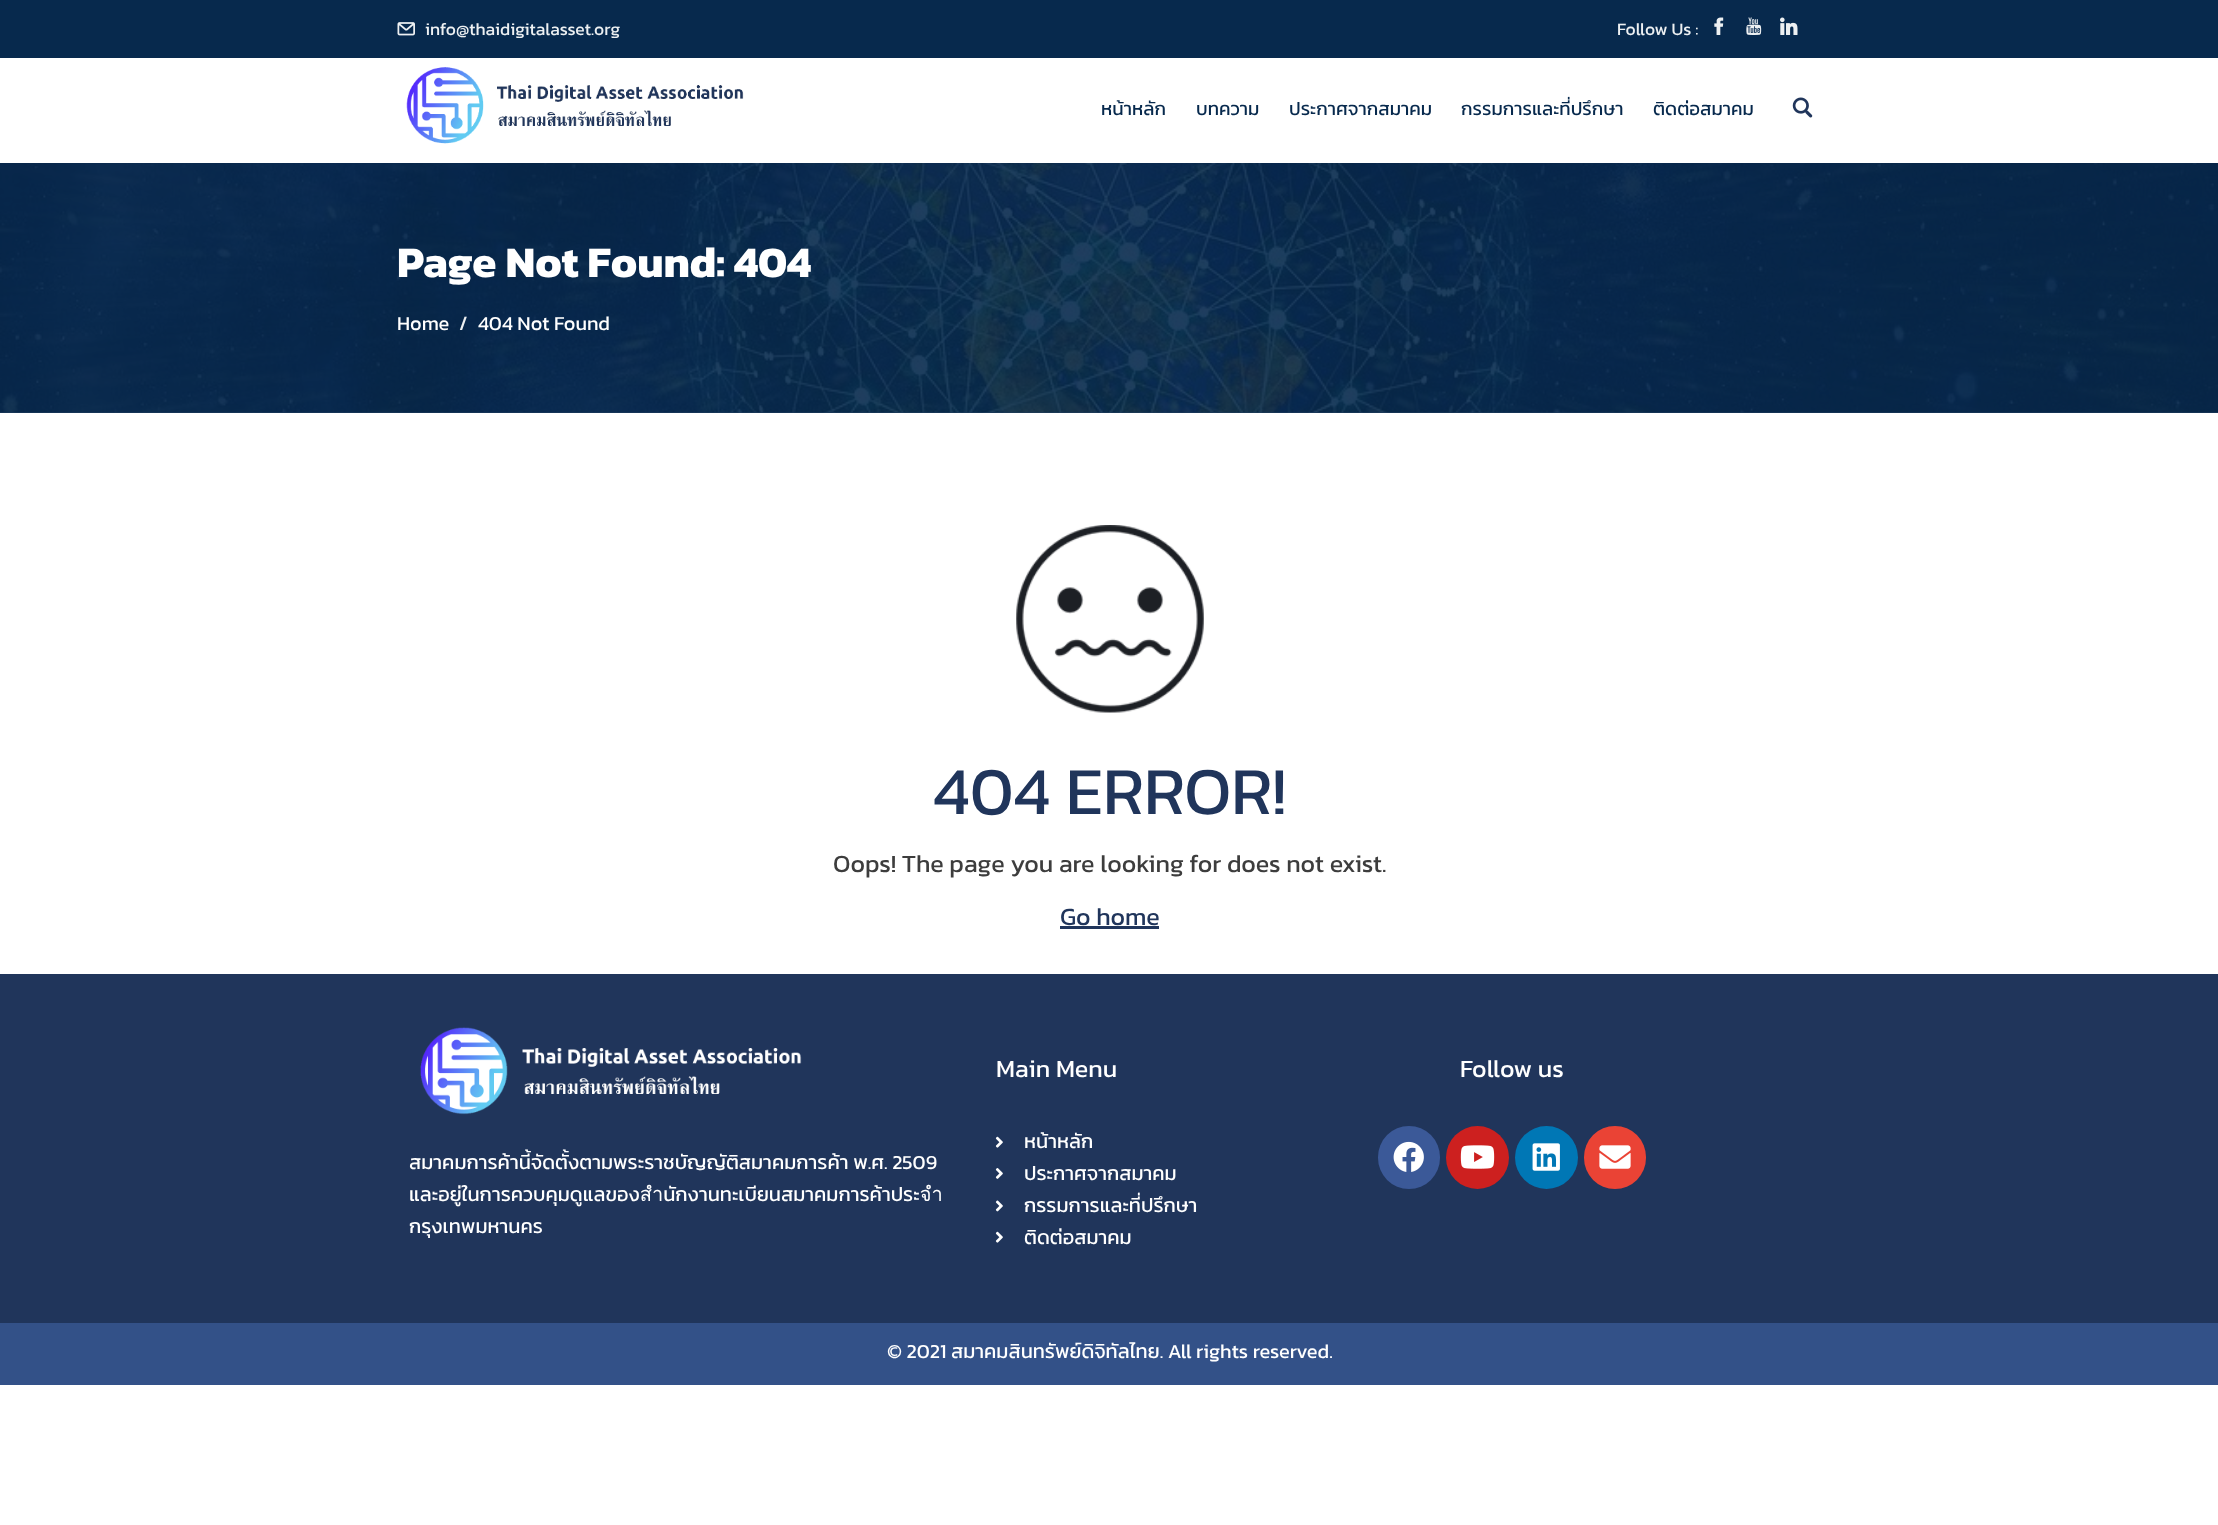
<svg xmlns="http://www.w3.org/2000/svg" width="2218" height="1525">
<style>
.a{font:17.5px Kanit;fill:#edf0f2}
.b{font:18.75px Kanit;fill:#07294d}
.c{font:bold 43.75px Kanit;fill:#fff}
.d{font:20px Kanit;fill:#fff}
.e{font:20px Kanit;fill:#edf0f2}
.f{font:67.5px Kanit;fill:#20355b}
.g{font:25px Kanit;fill:#3d3d3d}
.h{font:25px Kanit;fill:#20355b}
.i{font:25px Kanit;fill:#fff}
</style>
<rect width="100%" height="100%" fill="#fff"/>
<path fill="#203e5f" d="M0 412h2218v1H0z"/>
<path fill="#07294d" d="M0 0h2218v58H0z"/>
<image href="1.png" x="397" y="22" width="18" height="14"/>
<image href="2.png" x="1714" y="17" width="10" height="18"/>
<image href="3.png" x="1746" y="17" width="16" height="18"/>
<image href="4.png" x="1780" y="17" width="18" height="18"/>
<image href="5.png" x="406" y="67" width="338" height="77"/>
<image href="6.png" x="1792" y="97" width="21" height="21"/>
<image href="7.png" x="0" y="163" width="2218" height="250"/>
<image href="8.png" x="1016" y="525" width="188" height="188"/>
<path fill="#20355b" d="M1060 926h99v3H1060z"/>
<path fill="#20355b" d="M0 974h2218v349H0z"/>
<image href="9.png" x="995" y="1136" width="8" height="12"/>
<image href="10.png" x="995" y="1168" width="8" height="11"/>
<image href="11.png" x="995" y="1200" width="8" height="12"/>
<image href="9.png" x="995" y="1231" width="8" height="12"/>
<rect fill="#3b5998" x="1378" y="1126" width="62" height="63" rx="31"/>
<image href="12.png" x="1393" y="1141" width="31" height="31"/>
<circle fill="#cd201f" cx="1477.5" cy="1157.5" r="31.5"/>
<image href="13.png" x="1460" y="1145" width="35" height="24"/>
<circle fill="#0077b5" cx="1546.5" cy="1157.5" r="31.5"/>
<image href="14.png" x="1532" y="1143" width="28" height="28"/>
<rect fill="#ea4335" x="1584" y="1126" width="62" height="63" rx="31"/>
<image href="15.png" x="1599" y="1145" width="32" height="24"/>
<image href="16.png" x="420" y="1027" width="382" height="88"/>
<path fill="#335188" d="M0 1323h2218v62H0z"/>
<text class="a" x="425" y="35">info@thaidigitalasset.org</text>
<text class="a" x="1617" y="35">Follow Us :</text>
<text class="b" x="1101" y="115">หน้าหลัก</text>
<text class="b" x="1196" y="115">บทความ</text>
<text class="b" x="1289" y="115">ประกาศจากสมาคม</text>
<text class="b" x="1461" y="115">กรรมการและที่ปรึกษา</text>
<text class="b" x="1653" y="115">ติดต่อสมาคม</text>
<text class="c" x="397" y="277">Page Not Found: 404</text>
<text class="d" x="397" y="330">Home</text>
<text class="e" x="459" y="330">/</text>
<text class="d" x="478" y="330">404 Not Found</text>
<text class="f" x="933" y="814">404 ERROR!</text>
<text class="g" x="833" y="872">Oops! The page you are looking for does not exist.</text>
<text class="h" x="1060" y="925">Go home</text>
<text class="i" x="996" y="1077">Main Menu</text>
<text class="d" x="1024" y="1148">หน้าหลัก</text>
<text class="d" x="1024" y="1180">ประกาศจากสมาคม</text>
<text class="d" x="1024" y="1212">กรรมการและที่ปรึกษา</text>
<text class="d" x="1024" y="1244">ติดต่อสมาคม</text>
<text class="i" x="1460" y="1077">Follow us</text>
<text class="d" x="409" y="1169">สมาคมการค้านี้จัดตั้งตามพระราชบัญญัติสมาคมการค้า พ.ศ. 2509</text>
<text class="d" x="409" y="1201">และอยู่ในการควบคุมดูแลของสำนักงานทะเบียนสมาคมการค้าประจำ</text>
<text class="d" x="409" y="1233">กรุงเทพมหานคร</text>
<text class="d" x="887" y="1358">© 2021 สมาคมสินทรัพย์ดิจิทัลไทย. All rights reserved.</text>
</svg>
